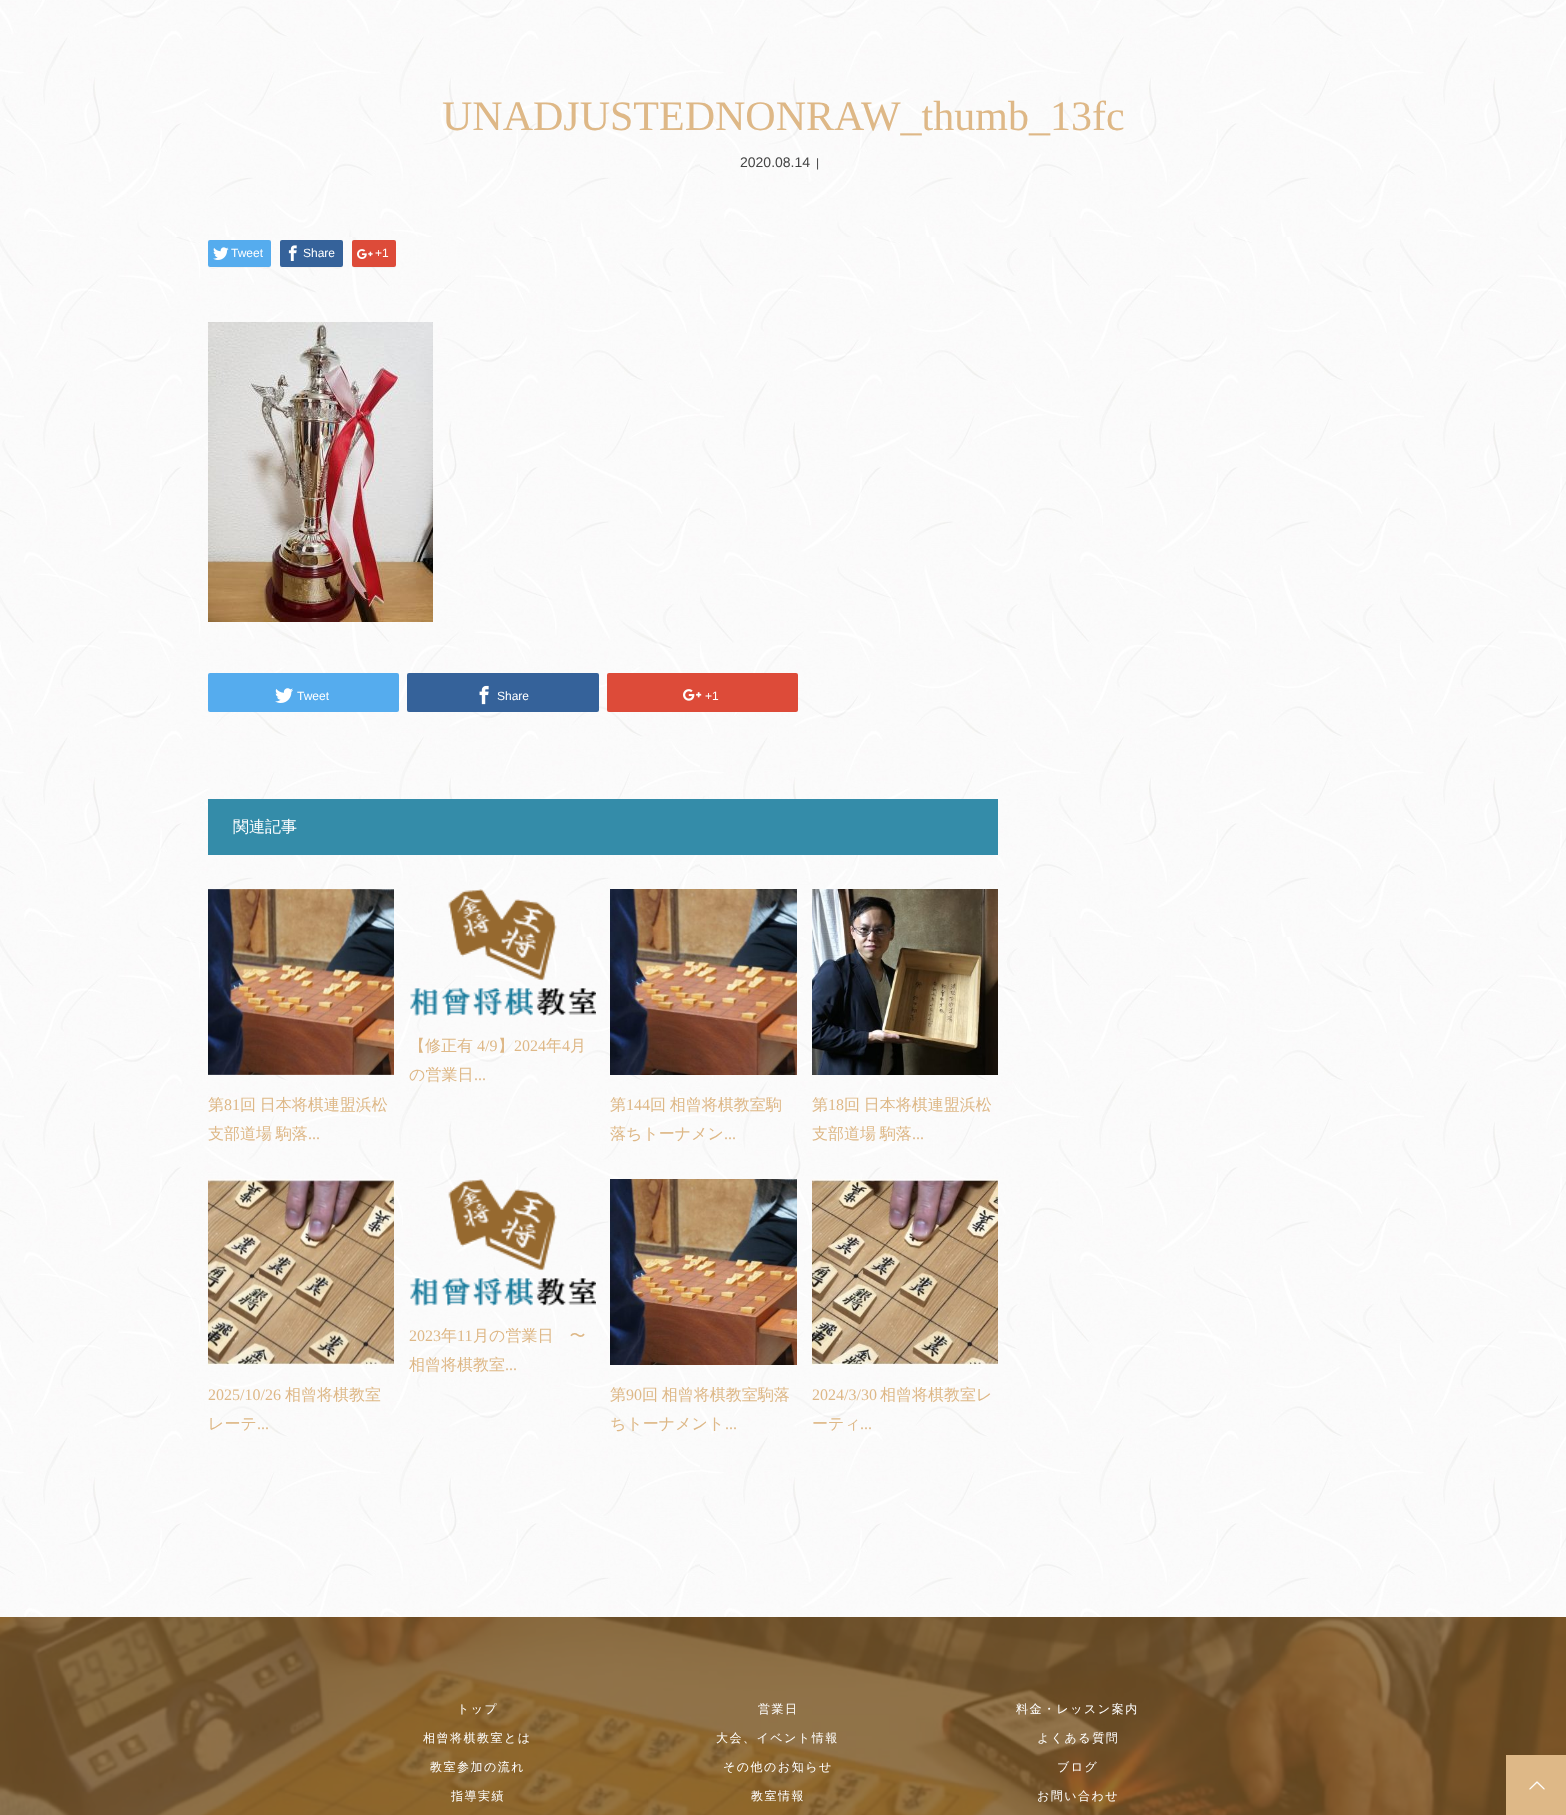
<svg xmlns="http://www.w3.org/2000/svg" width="1566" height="1815">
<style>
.a{font:42px Liberation Serif;fill:#deb887}
.b{font:14px Liberation Sans;fill:#444}
.c{font:12px Liberation Sans;fill:#444}
.d{font:12px Liberation Sans;fill:#fff}
.e{font:500 16px WenQuanYi Zen Hei;fill:#fff}
.f{font:500 16px WenQuanYi Zen Hei;fill:#deb887}
.g{font:16px Liberation Serif;fill:#deb887}
.h{font:500 12px WenQuanYi Zen Hei;letter-spacing:1.5px;fill:#fff}
</style>
<rect width="100%" height="100%" fill="#fff"/>
<image href="1.png" x="0" y="0" width="1566" height="1617"/>
<path fill="#00000008" d="M208 265c0 6 8 3 12 3h39c4 0 12 3 12-3l-1 2h-50c-4 0-12 2-12-2z"/>
<rect fill="#55acee" x="208" y="240" width="63" height="27" rx="2"/>
<image href="2.png" x="213" y="247" width="16" height="13"/>
<path fill="#00000008" d="M280 265c0 6 8 3 12 3h39c4 0 12 3 12-3l-1 2h-50c-4 0-12 2-12-2z"/>
<rect fill="#35629a" x="280" y="240" width="63" height="27" rx="2"/>
<image href="3.png" x="288" y="245" width="9" height="16"/>
<path fill="#00000008" d="M352 265c0 5 5 3 9 3h26c4 0 9 2 9-3c0 1-1 2-2 2h-40c-1 0-2-1-2-2z"/>
<rect fill="#dd4b39" x="352" y="240" width="44" height="27" rx="2"/>
<image href="4.png" x="357" y="249" width="16" height="10"/>
<image href="5.png" x="208" y="322" width="225" height="300"/>
<rect fill="#55acee" x="208" y="673" width="191" height="39" rx="2"/>
<image href="6.png" x="275" y="688" width="18" height="15"/>
<rect fill="#35629a" x="407" y="673" width="192" height="39" rx="2"/>
<image href="7.png" x="479" y="685" width="10" height="20"/>
<rect fill="#dd4b39" x="607" y="673" width="191" height="39" rx="2"/>
<image href="8.png" x="683" y="689" width="19" height="12"/>
<path fill="#348ca9" d="M208 799h790v56H208z"/>
<image href="9.png" x="410" y="889" width="186" height="127"/>
<image href="10.png" x="208" y="889" width="186" height="186"/>
<image href="11.png" x="610" y="889" width="187" height="186"/>
<image href="12.png" x="812" y="889" width="186" height="186"/>
<image href="13.png" x="410" y="1179" width="186" height="127"/>
<image href="14.png" x="208" y="1179" width="186" height="186"/>
<image href="15.png" x="610" y="1179" width="187" height="186"/>
<image href="16.png" x="812" y="1179" width="186" height="186"/>
<image href="17.png" x="0" y="1617" width="1566" height="198"/>
<path fill="#deb887" d="M1506 1755h60v60H1506z"/>
<image href="18.png" x="1529" y="1781" width="16" height="9"/>
<text class="a" x="442" y="130">UNADJUSTEDNONRAW_thumb_13fc</text>
<text class="b" x="740" y="167">2020.08.14</text>
<text class="c" x="816" y="167">|</text>
<text class="d" x="231" y="257">Tweet</text>
<text class="d" x="303" y="257">Share</text>
<text class="d" x="375" y="257">+1</text>
<text class="d" x="297" y="700">Tweet</text>
<text class="d" x="497" y="700">Share</text>
<text class="d" x="705" y="700">+1</text>
<text class="e" x="233" y="832">関連記事</text>
<text class="f" x="409" y="1051">【修正有</text>
<text class="g" x="477" y="1051">4/9</text>
<text class="f" x="498" y="1051">】</text>
<text class="g" x="514" y="1051">2024</text>
<text class="f" x="546" y="1051">年</text>
<text class="g" x="562" y="1051">4</text>
<text class="f" x="570" y="1051">月</text>
<text class="f" x="409" y="1080">の営業日</text>
<text class="g" x="474" y="1080">...</text>
<text class="f" x="208" y="1110">第</text>
<text class="g" x="224" y="1110">81</text>
<text class="f" x="240" y="1110" word-spacing="-1">回 日本将棋連盟浜松</text>
<text class="f" x="208" y="1139" word-spacing="-1">支部道場 駒落</text>
<text class="g" x="308" y="1139">...</text>
<text class="f" x="610" y="1110">第</text>
<text class="g" x="626" y="1110">144</text>
<text class="f" x="650" y="1110" word-spacing="-1">回 相曾将棋教室駒</text>
<text class="f" x="610" y="1139">落ちトーナメン</text>
<text class="g" x="724" y="1139">...</text>
<text class="f" x="812" y="1110">第</text>
<text class="g" x="828" y="1110">18</text>
<text class="f" x="844" y="1110" word-spacing="-1">回 日本将棋連盟浜松</text>
<text class="f" x="812" y="1139" word-spacing="-1">支部道場 駒落</text>
<text class="g" x="912" y="1139">...</text>
<text class="g" x="409" y="1341">2023</text>
<text class="f" x="441" y="1341">年</text>
<text class="g" x="457" y="1341">11</text>
<text class="f" x="473" y="1341">月の営業日　〜</text>
<text class="f" x="409" y="1370">相曾将棋教室</text>
<text class="g" x="505" y="1370">...</text>
<text class="g" x="208" y="1400">2025/10/26</text>
<text class="f" x="285" y="1400">相曾将棋教室</text>
<text class="f" x="208" y="1429">レーテ</text>
<text class="g" x="257" y="1429">...</text>
<text class="f" x="610" y="1400">第</text>
<text class="g" x="626" y="1400">90</text>
<text class="f" x="642" y="1400" word-spacing="-1">回 相曾将棋教室駒落</text>
<text class="f" x="610" y="1429">ちトーナメント</text>
<text class="g" x="725" y="1429">...</text>
<text class="g" x="812" y="1400">2024/3/30</text>
<text class="f" x="880" y="1400">相曾将棋教室レ</text>
<text class="f" x="812" y="1429">ーティ</text>
<text class="g" x="860" y="1429">...</text>
<text class="h" x="457" y="1713">トップ</text>
<text class="h" x="423" y="1742">相曾将棋教室とは</text>
<text class="h" x="430" y="1771">教室参加の流れ</text>
<text class="h" x="451" y="1800">指導実績</text>
<text class="h" x="758" y="1713">営業日</text>
<text class="h" x="716" y="1742">大会、イベント情報</text>
<text class="h" x="723" y="1771">その他のお知らせ</text>
<text class="h" x="751" y="1800">教室情報</text>
<text class="h" x="1016" y="1713">料金・レッスン案内</text>
<text class="h" x="1037" y="1742">よくある質問</text>
<text class="h" x="1057" y="1771">ブログ</text>
<text class="h" x="1037" y="1800">お問い合わせ</text>
</svg>
